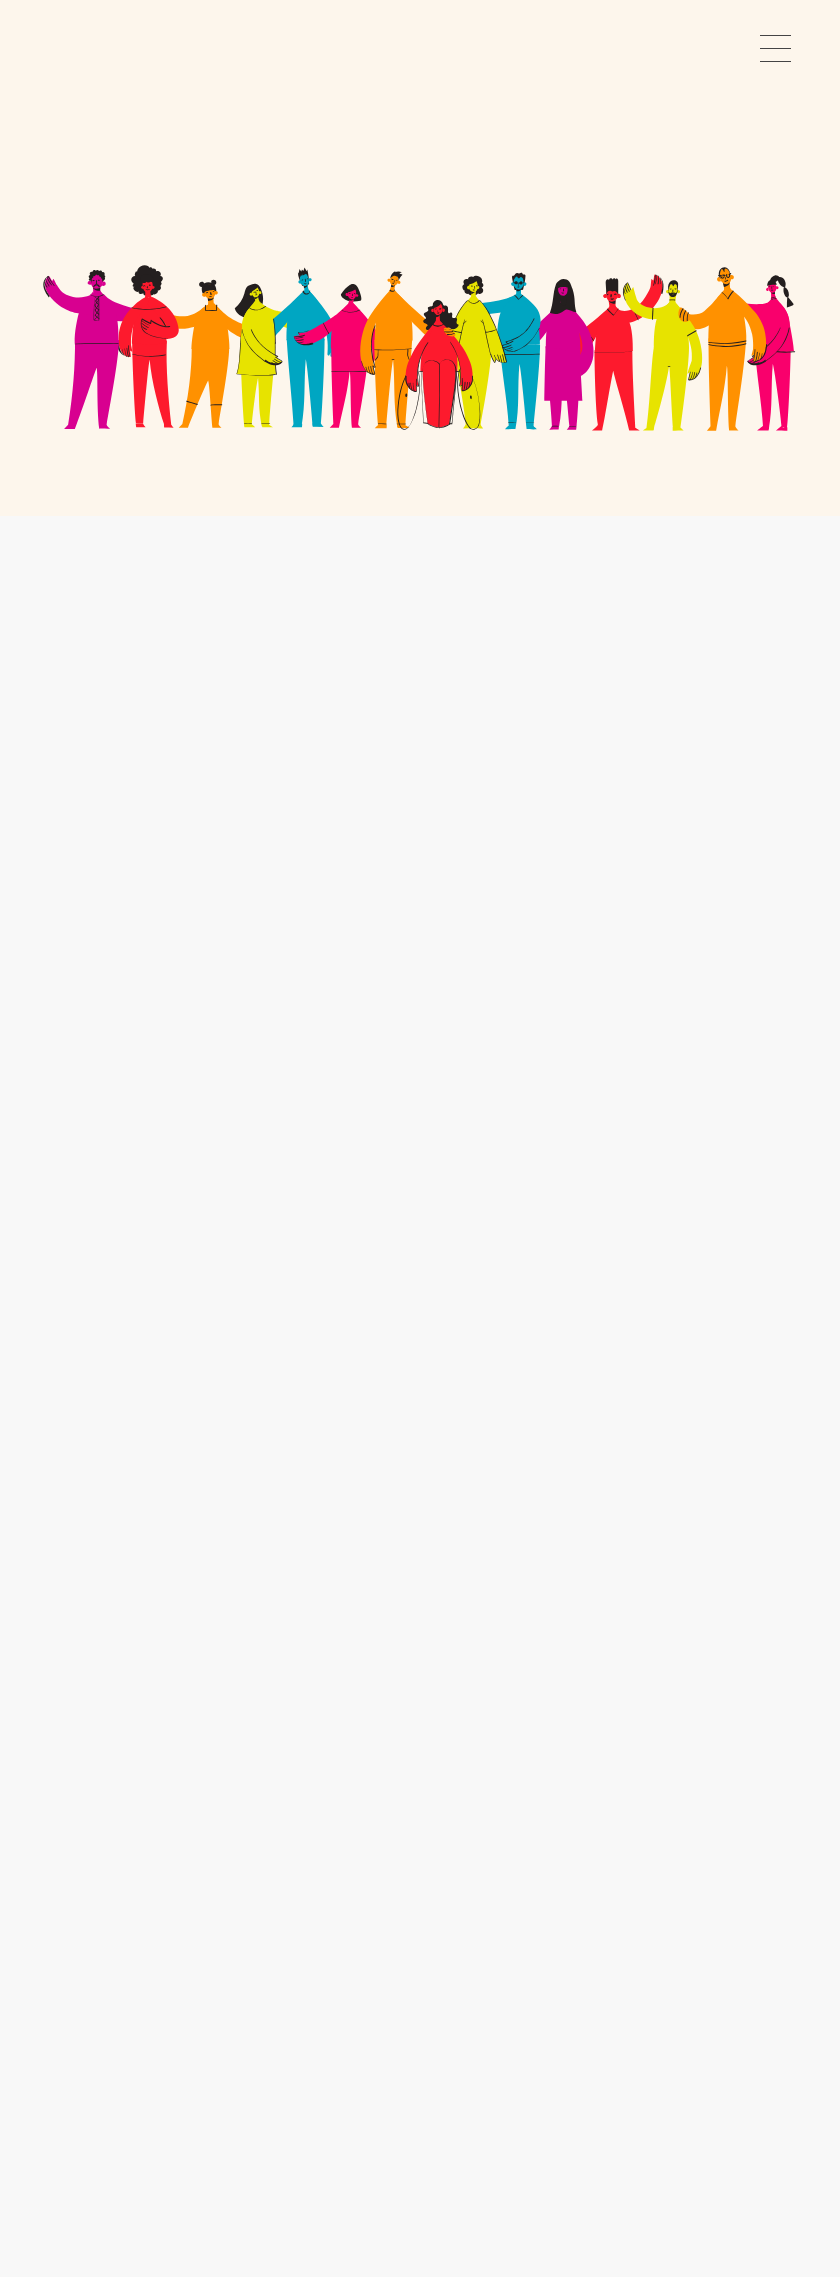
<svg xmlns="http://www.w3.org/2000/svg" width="840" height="2277">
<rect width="100%" height="100%" fill="#f8f8f8"/>
<path fill="#fdf6ec" d="M0 0h840v516H0z"/>
<image href="1.png" x="43" y="265" width="753" height="166"/>
<path fill="#444" d="M760 35h31v1H760z"/>
<path fill="#444" d="M760 48h31v1H760z"/>
<path fill="#444" d="M760 61h31v1H760z"/>
</svg>
